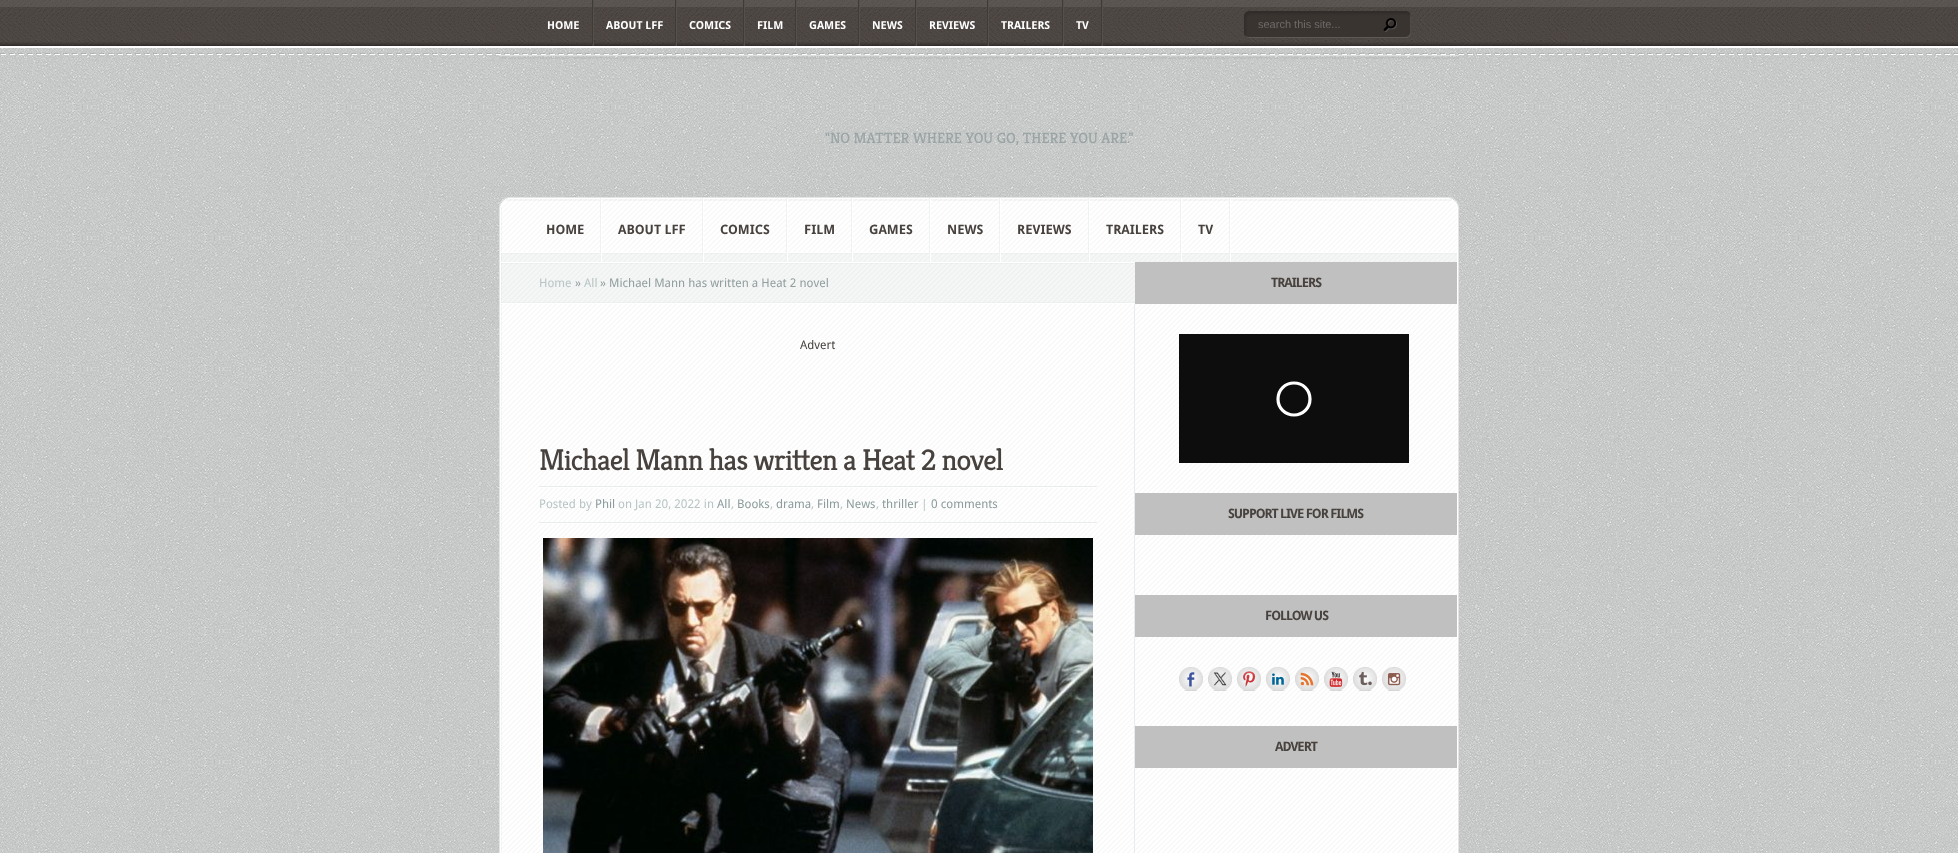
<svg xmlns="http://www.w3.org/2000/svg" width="1958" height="853">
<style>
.a{font:bold 11px Droid Sans;fill:#fff}
.b{font:11px Liberation Sans;fill:#6f6967}
.c{font:15px Kreon;fill:#9aa4a4}
.d{font:bold 13px Droid Sans;fill:#48423f}
.e{font:12px Droid Sans;fill:#b9c5c5}
.f{font:12px Droid Sans;fill:#929e9e}
.g{font:12px Droid Sans;fill:#48423f}
.h{font:30px Kreon;letter-spacing:-1px;fill:#48423f}
.i{font:12px Droid Sans;fill:#8c9c9c}
.j{font:bold 13px Droid Sans;letter-spacing:-1px;fill:#48423f}
</style>
<rect width="100%" height="100%" fill="#fff"/>
<image href="1.png" x="0" y="0" width="1958" height="46"/>
<path fill="#ffffff14" d="M0 0h1958v7H0z"/>
<image href="5.png" x="0" y="42" width="1958" height="4"/>
<image href="2.png" x="592" y="0" width="2" height="46"/>
<image href="2.png" x="675" y="0" width="2" height="46"/>
<image href="2.png" x="743" y="0" width="2" height="46"/>
<image href="2.png" x="795" y="0" width="2" height="46"/>
<image href="2.png" x="858" y="0" width="2" height="46"/>
<image href="2.png" x="915" y="0" width="2" height="46"/>
<image href="2.png" x="987" y="0" width="2" height="46"/>
<image href="2.png" x="1062" y="0" width="2" height="46"/>
<image href="2.png" x="1101" y="0" width="2" height="46"/>
<image href="3.png" x="1244" y="11" width="167" height="27"/>
<image href="4.png" x="1383" y="18" width="14" height="14"/>
<path fill="#fafcfc" d="M0 48h1958v805H0z"/>
<image href="6.png" x="0" y="48" width="1958" height="805"/>
<image href="7.png" x="0" y="53" width="1958" height="2"/>
<rect fill="none" stroke="#e2e5e5" x="499.5" y="197.5" width="959" height="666" rx="9.5"/>
<image href="8.png" x="500" y="198" width="958" height="655"/>
<rect fill="none" stroke="#fff" x="500.5" y="198.5" width="957" height="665" rx="9.5"/>
<image href="9.png" x="501" y="207" width="1" height="646"/>
<path fill="#00000008" d="M506 199h946v2H506z"/>
<path fill="#00000008" d="M499 57h960v2H499z"/>
<path fill="#dee0e0" d="M499 55h960v1H499z"/>
<image href="10.png" x="501" y="252" width="956" height="10"/>
<image href="11.png" x="600" y="198" width="2" height="64"/>
<image href="11.png" x="702" y="198" width="2" height="64"/>
<image href="11.png" x="786" y="198" width="2" height="64"/>
<image href="11.png" x="851" y="198" width="2" height="64"/>
<image href="11.png" x="929" y="198" width="2" height="64"/>
<image href="11.png" x="999" y="198" width="2" height="64"/>
<image href="11.png" x="1088" y="198" width="2" height="64"/>
<image href="11.png" x="1180" y="198" width="2" height="64"/>
<image href="11.png" x="1229" y="198" width="2" height="64"/>
<image href="12.png" x="501" y="262" width="634" height="42"/>
<path fill="#e9ecec" d="M1134 304h1v549H1134z"/>
<image href="13.png" x="539" y="486" width="558" height="2"/>
<image href="13.png" x="539" y="522" width="558" height="2"/>
<image href="14.png" x="543" y="538" width="550" height="315"/>
<path fill="#c0c0c0" d="M1135 262h322v42H1135z"/>
<path fill="#0d0d0d" d="M1179 334h230v129H1179z"/>
<path fill="none" stroke="#fff" stroke-width="3.2" d="M1278 399c0-9 7-16 16-16c9 0 16 7 16 16c0 9-7 16-16 16c-9 0-16-7-16-16"/>
<path fill="#c0c0c0" d="M1135 493h322v42H1135z"/>
<path fill="#c0c0c0" d="M1135 595h322v42H1135z"/>
<image href="15.png" x="1179" y="667" width="24" height="24"/>
<image href="16.png" x="1208" y="667" width="24" height="24"/>
<image href="17.png" x="1237" y="667" width="24" height="24"/>
<image href="18.png" x="1266" y="667" width="24" height="24"/>
<image href="19.png" x="1295" y="667" width="24" height="24"/>
<image href="20.png" x="1324" y="667" width="24" height="24"/>
<image href="21.png" x="1353" y="667" width="24" height="24"/>
<image href="22.png" x="1382" y="667" width="24" height="24"/>
<path fill="#c0c0c0" d="M1135 726h322v42H1135z"/>
<text class="a" x="547" y="29">HOME</text>
<text class="a" x="606" y="29">ABOUT LFF</text>
<text class="a" x="689" y="29">COMICS</text>
<text class="a" x="757" y="29">FILM</text>
<text class="a" x="809" y="29">GAMES</text>
<text class="a" x="872" y="29">NEWS</text>
<text class="a" x="929" y="29">REVIEWS</text>
<text class="a" x="1001" y="29">TRAILERS</text>
<text class="a" x="1076" y="29">TV</text>
<text class="b" x="1258" y="28">search this site...</text>
<text class="c" x="825" y="143">"NO MATTER WHERE YOU GO, THERE YOU ARE."</text>
<text class="d" x="546" y="234">HOME</text>
<text class="d" x="618" y="234">ABOUT LFF</text>
<text class="d" x="720" y="234">COMICS</text>
<text class="d" x="804" y="234">FILM</text>
<text class="d" x="869" y="234">GAMES</text>
<text class="d" x="947" y="234">NEWS</text>
<text class="d" x="1017" y="234">REVIEWS</text>
<text class="d" x="1106" y="234">TRAILERS</text>
<text class="d" x="1198" y="234">TV</text>
<text class="e" x="539" y="287">Home</text>
<text class="f" x="575" y="287">»</text>
<text class="e" x="584" y="287">All</text>
<text class="f" x="600" y="287">» Michael Mann has written a Heat 2 novel</text>
<text class="g" x="800" y="349">Advert</text>
<text class="h" x="539" y="470">Michael Mann has written a Heat 2 novel</text>
<text class="e" x="539" y="508">Posted by</text>
<text class="i" x="595" y="508">Phil</text>
<text class="e" x="618" y="508">on Jan 20, 2022 in</text>
<text class="i" x="717" y="508">All</text>
<text class="e" x="731" y="508">,</text>
<text class="i" x="737" y="508">Books</text>
<text class="e" x="770" y="508">,</text>
<text class="i" x="776" y="508">drama</text>
<text class="e" x="811" y="508">,</text>
<text class="i" x="817" y="508">Film</text>
<text class="e" x="840" y="508">,</text>
<text class="i" x="846" y="508">News</text>
<text class="e" x="876" y="508">,</text>
<text class="i" x="882" y="508">thriller</text>
<text class="e" x="921" y="508">|</text>
<text class="i" x="931" y="508">0 comments</text>
<text class="j" x="1271" y="287">TRAILERS</text>
<text class="j" x="1228" y="518">SUPPORT LIVE FOR FILMS</text>
<text class="j" x="1265" y="620">FOLLOW US</text>
<text class="j" x="1275" y="751">ADVERT</text>
</svg>
